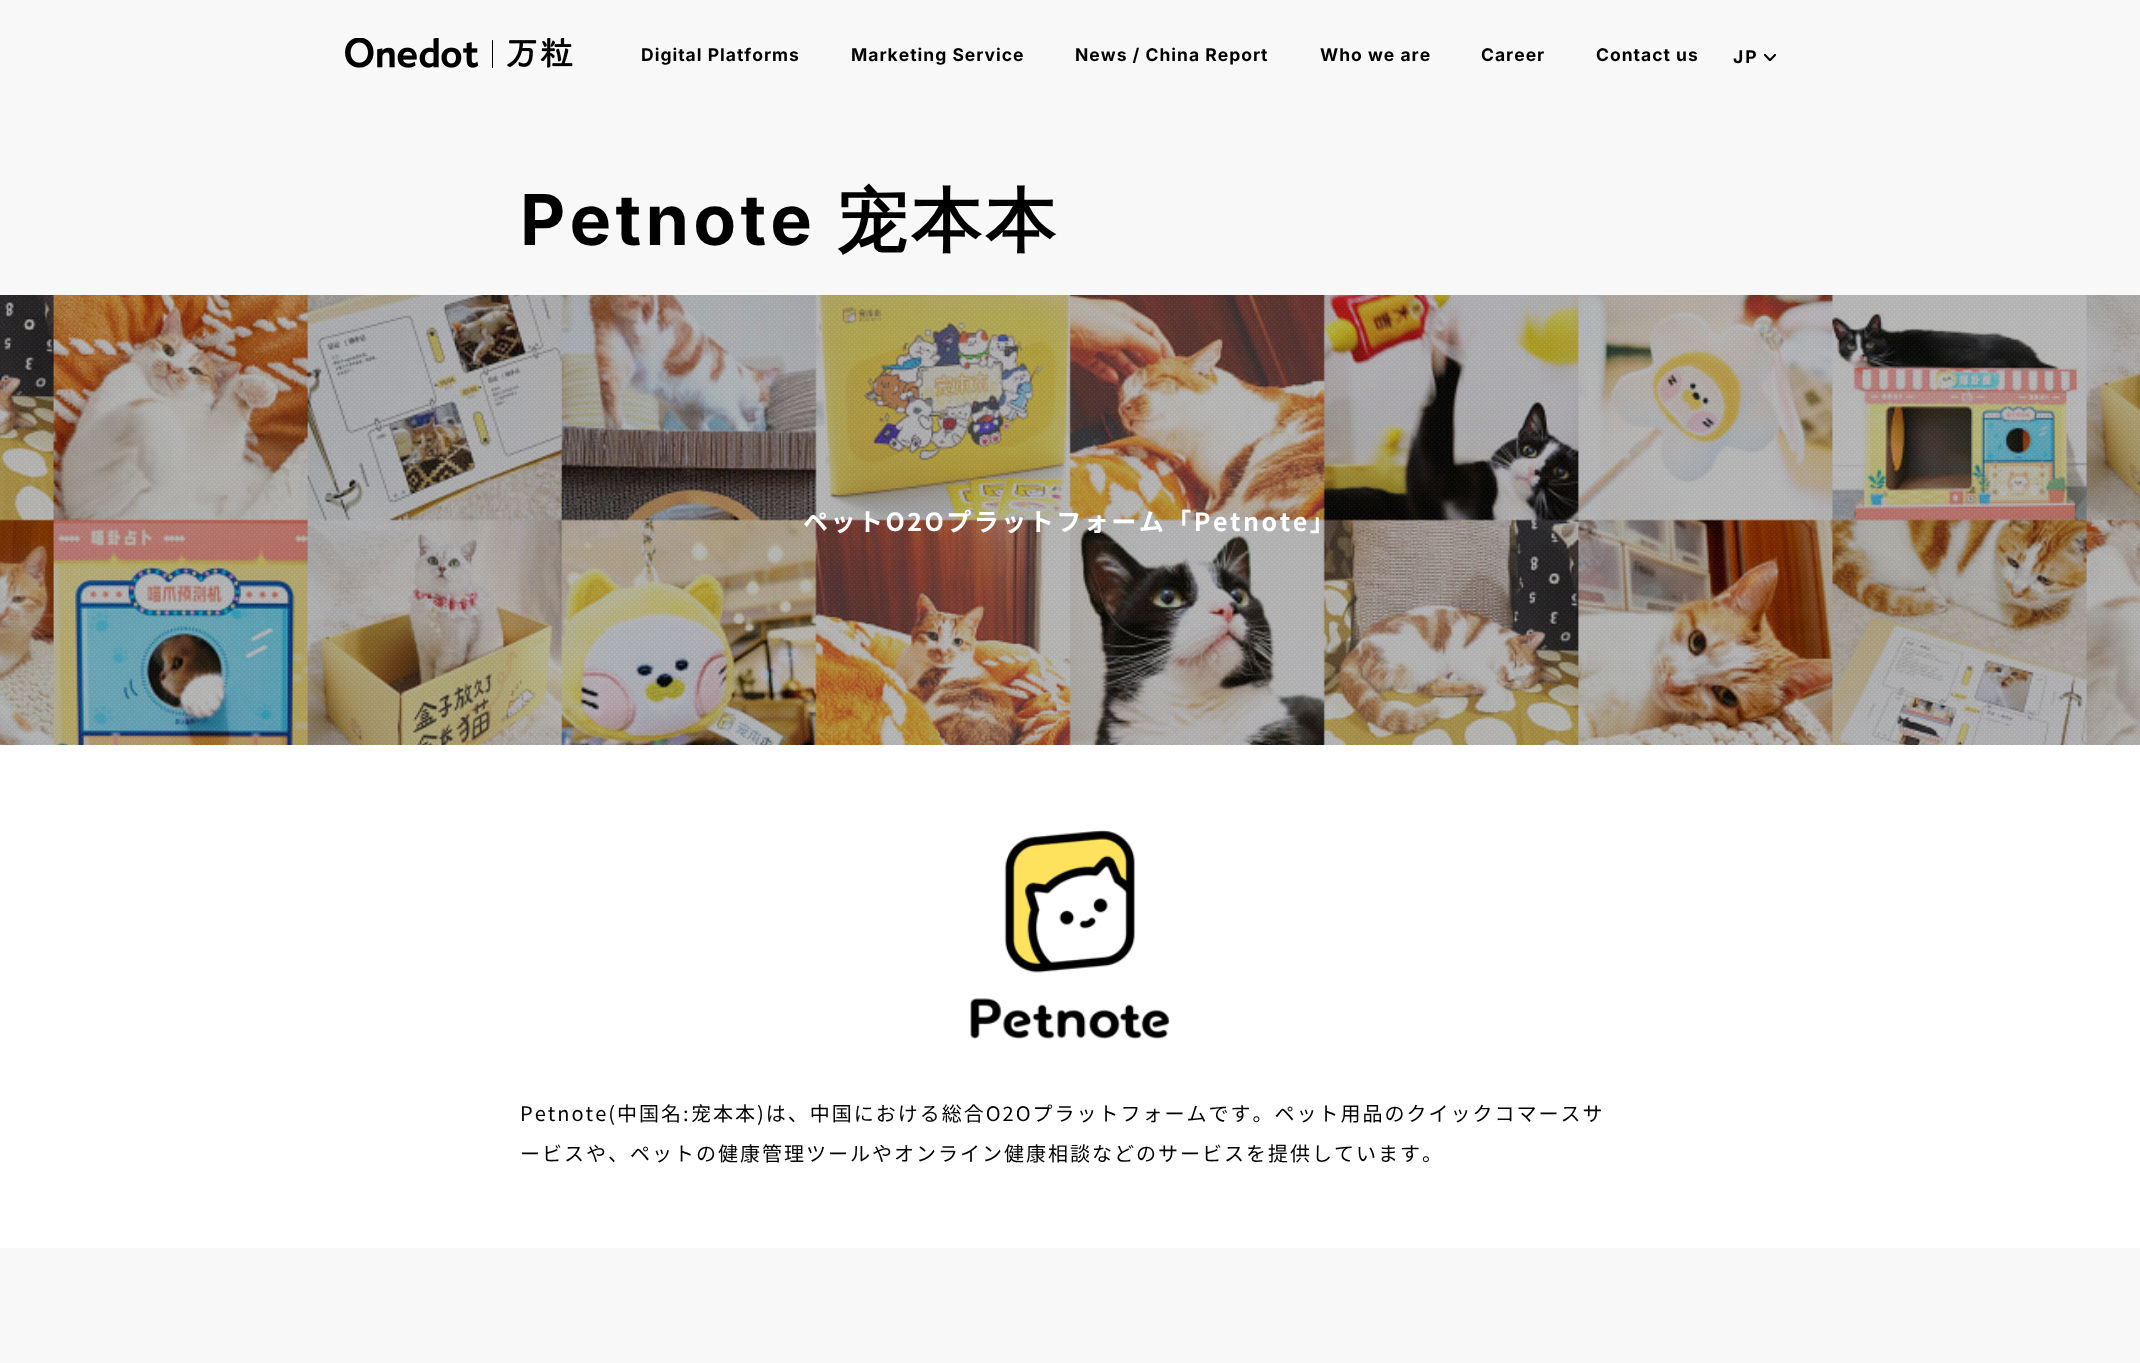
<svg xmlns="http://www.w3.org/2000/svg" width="2140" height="1363">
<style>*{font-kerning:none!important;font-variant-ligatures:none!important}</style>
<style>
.a{font:bold 17.5px Inter;letter-spacing:1px;fill:#000}
.b{font:bold 17.5px Inter;letter-spacing:2px;fill:#000}
.c{font:bold 70px Inter;letter-spacing:4.25px;fill:#000}
.d{font:bold 70px WenQuanYi Zen Hei;letter-spacing:4.25px;fill:#000}
.e{font:bold 25px Noto Sans JP;letter-spacing:2.5px;fill:#fff}
.f{font:20px Noto Sans JP;letter-spacing:2px;fill:#000}
.g{font:20px Noto Sans SC;letter-spacing:2px;fill:#000}
</style>
<rect width="100%" height="100%" fill="#f9f8f8"/>
<image href="1.png" x="345" y="38" width="228" height="30"/>
<image href="2.png" x="1764" y="54" width="12" height="7"/>
<image href="3.png" x="0" y="295" width="2140" height="450"/>
<image href="4.png" x="0" y="295" width="2140" height="450"/>
<path fill="#fff" d="M0 745h2140v503H0z"/>
<image href="5.png" x="970" y="830" width="200" height="209"/>
<text class="a" x="641" y="61">Digital Platforms</text>
<text class="a" x="851" y="61">Marketing Service</text>
<text class="a" x="1075" y="61">News / China Report</text>
<text class="a" x="1320" y="61">Who we are</text>
<text class="a" x="1481" y="61">Career</text>
<text class="a" x="1596" y="61">Contact us</text>
<text class="b" x="1733" y="63">JP</text>
<text class="c" x="520" y="245">Petnote</text>
<text class="d" x="837" y="245">宠本本</text>
<text class="e" x="803" y="531">ペットO2Oプラットフォーム「Petnote」</text>
<text class="f" x="520" y="1121">Petnote(中国名:</text>
<text class="g" x="691" y="1121">宠</text>
<text class="f" x="713" y="1121">本本)は、中国における総合O2Oプラットフォームです。ペット用品のクイックコマースサ</text>
<text class="f" x="520" y="1161">ービスや、ペットの健康管理ツールやオンライン健康相談などのサービスを提供しています。</text>
</svg>
